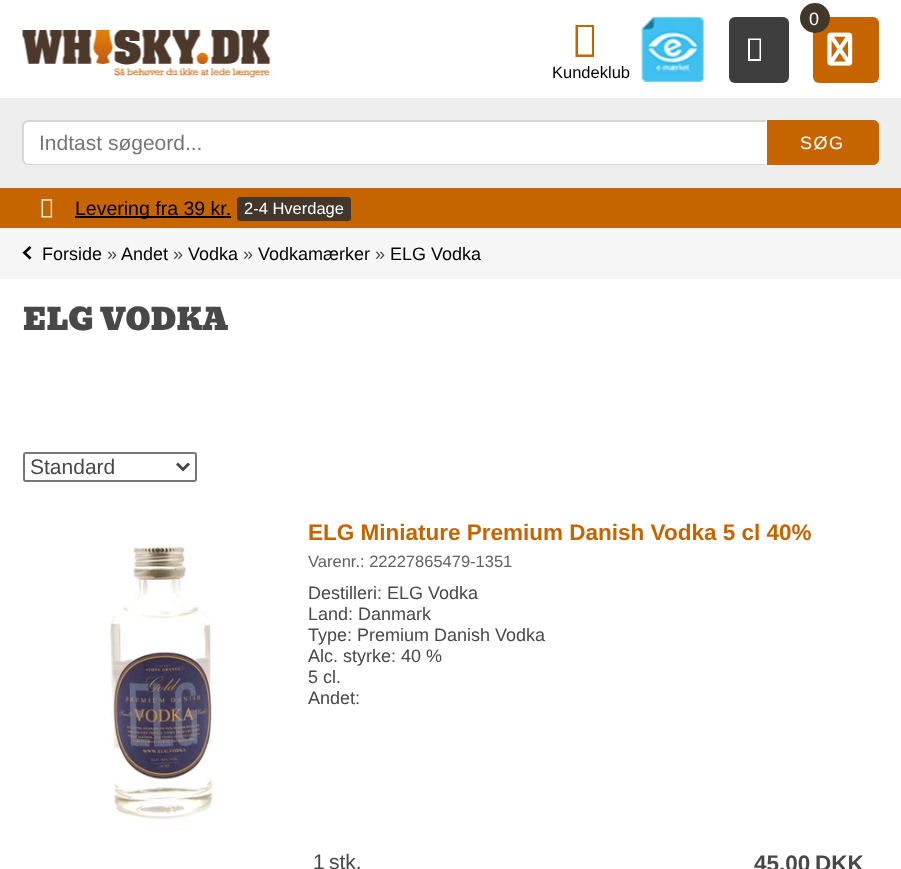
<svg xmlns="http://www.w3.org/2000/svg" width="901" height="869">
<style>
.a{font:16.5px Liberation Sans;fill:#000}
.b{font:18px Liberation Sans;fill:#fff}
.c{font:21px Liberation Sans;fill:#757575}
.d{font:18px Liberation Sans;letter-spacing:1.5px;fill:#fff}
.e{font:19.5px Liberation Sans;fill:#000}
.f{font:16.5px Liberation Sans;fill:#fff}
.g{font:18px Liberation Sans;fill:#000}
.h{font:18px Liberation Sans;fill:#484848}
.i{font:30px Bevan;fill:#484848}
.j{font:21px Liberation Sans;fill:#484848}
.k{font:bold 22.5px Liberation Sans;fill:#c66500}
.l{font:16.5px Liberation Sans;fill:#616161}
.m{font:bold 22.5px Liberation Sans;fill:#484848}
</style>
<rect width="100%" height="100%" fill="#fff"/>
<image href="1.png" x="22" y="30" width="249" height="48"/>
<path fill="#c66500" d="M575.5 57v-32h18.5v32zm2.5-2.5h14v-27.5h-14z"/>
<image href="2.png" x="641" y="17" width="63" height="65"/>
<rect fill="#c66500" x="813" y="17" width="66" height="66" rx="6"/>
<image href="3.png" x="827" y="32" width="26" height="34"/>
<circle fill="#43372b" cx="815" cy="18" r="15"/>
<rect fill="#3e3e3e" x="729" y="17" width="60" height="66" rx="6"/>
<path fill="#fff" d="M748 61v-22.5h13v22.5zm2-2h9.5v-19h-9.5z"/>
<path fill="#eee" d="M0 98h901v90H0z"/>
<path fill="#fff" d="M29 120h738v45h-738c-3.5 0-6-2.5-6-6v-33c0-3.5 2.5-6 6-6z"/>
<path fill="#d6d6d6" fill-rule="evenodd" d="M28 120h738v45h-738c-3 0-6-3-6-6v-33c0-3 3-6 6-6zm0 2h738v42h-738c-2 0-4-3-4-5v-33c0-2 2-4 4-4z"/>
<path fill="#c66500" d="M767 120h106c3.5 0 6 2.5 6 6v33c0 3.5-2.5 6-6 6h-106z"/>
<path fill="#c66500" d="M0 188h901v40H0z"/>
<image href="4.png" x="41" y="199" width="12" height="19"/>
<path fill="#000" d="M75 216h156v2H75z"/>
<rect fill="#43372b" x="237" y="197" width="114" height="24" rx="3"/>
<path fill="#f6f6f6" d="M0 228h901v51H0z"/>
<image href="5.png" x="22" y="246" width="10" height="14"/>
<rect fill="none" stroke="#767676" stroke-width="2" x="24" y="453" width="172" height="28" rx="2"/>
<path fill="none" stroke="#484848" stroke-width="3" d="M177 463.5l6 6l6-6"/>
<image href="6.png" x="109" y="545" width="105" height="286"/>
<text class="a" x="552" y="78">Kundeklub</text>
<text class="b" x="809" y="25">0</text>
<text class="c" x="39" y="150">Indtast søgeord...</text>
<text class="d" x="800" y="149">SØG</text>
<text class="e" x="75" y="215">Levering fra 39 kr.</text>
<text class="f" x="244" y="214">2-4 Hverdage</text>
<text class="g" x="42" y="260">Forside</text>
<text class="h" x="107" y="260">»</text>
<text class="g" x="121" y="260">Andet</text>
<text class="h" x="173" y="260">»</text>
<text class="g" x="188" y="260">Vodka</text>
<text class="h" x="243" y="260">»</text>
<text class="g" x="258" y="260">Vodkamærker</text>
<text class="h" x="375" y="260">»</text>
<text class="g" x="390" y="260">ELG Vodka</text>
<text class="i" x="23" y="330">ELG VODKA</text>
<text class="j" x="30" y="474">Standard</text>
<text class="k" x="308" y="540">ELG Miniature Premium Danish Vodka 5 cl 40%</text>
<text class="l" x="308" y="567">Varenr.: 22227865479-1351</text>
<text class="h" x="308" y="599">Destilleri: ELG Vodka</text>
<text class="h" x="308" y="620">Land: Danmark</text>
<text class="h" x="308" y="641">Type: Premium Danish Vodka</text>
<text class="h" x="308" y="662">Alc. styrke: 40 %</text>
<text class="h" x="308" y="683">5 cl.</text>
<text class="h" x="308" y="704">Andet:</text>
<text class="j" x="313" y="869">1</text>
<text class="j" x="329" y="869">stk.</text>
<text class="m" x="754" y="871">45,00</text>
<text class="m" x="815" y="871">DKK</text>
</svg>
